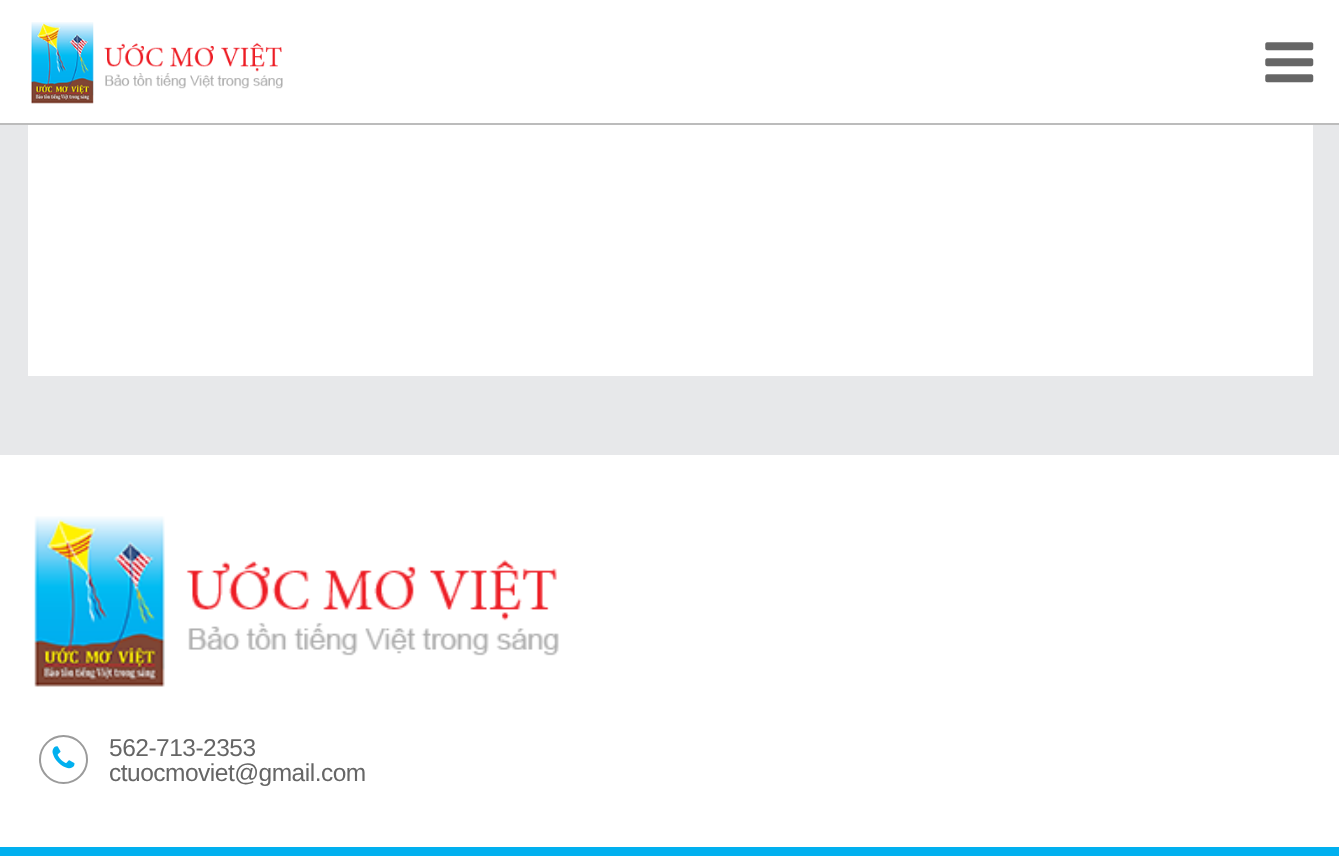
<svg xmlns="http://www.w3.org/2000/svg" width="1339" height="856">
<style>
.a{font:24.5px Liberation Sans;letter-spacing:-0.5px;fill:#666}
</style>
<rect width="100%" height="100%" fill="#e7e8ea"/>
<path fill="#fff" d="M0 0h1339v123H0z"/>
<path fill="#bcbcbc" d="M0 123h1339v2H0z"/>
<image href="1.png" x="31" y="22" width="252" height="82"/>
<image href="2.png" x="1265" y="42" width="49" height="41"/>
<path fill="#fff" d="M28 125h1285v251H28z"/>
<path fill="#fff" d="M0 455h1339v392H0z"/>
<image href="3.png" x="34" y="516" width="525" height="171"/>
<circle fill="none" stroke="#9b9b9b" stroke-width="2" cx="63.5" cy="759.5" r="23.5"/>
<image href="4.png" x="52" y="746" width="23" height="23"/>
<path fill="#01b0ef" d="M0 847h1339v9H0z"/>
<text class="a" x="109" y="756">562-713-2353</text>
<text class="a" x="109" y="781">ctuocmoviet@gmail.com</text>
</svg>
